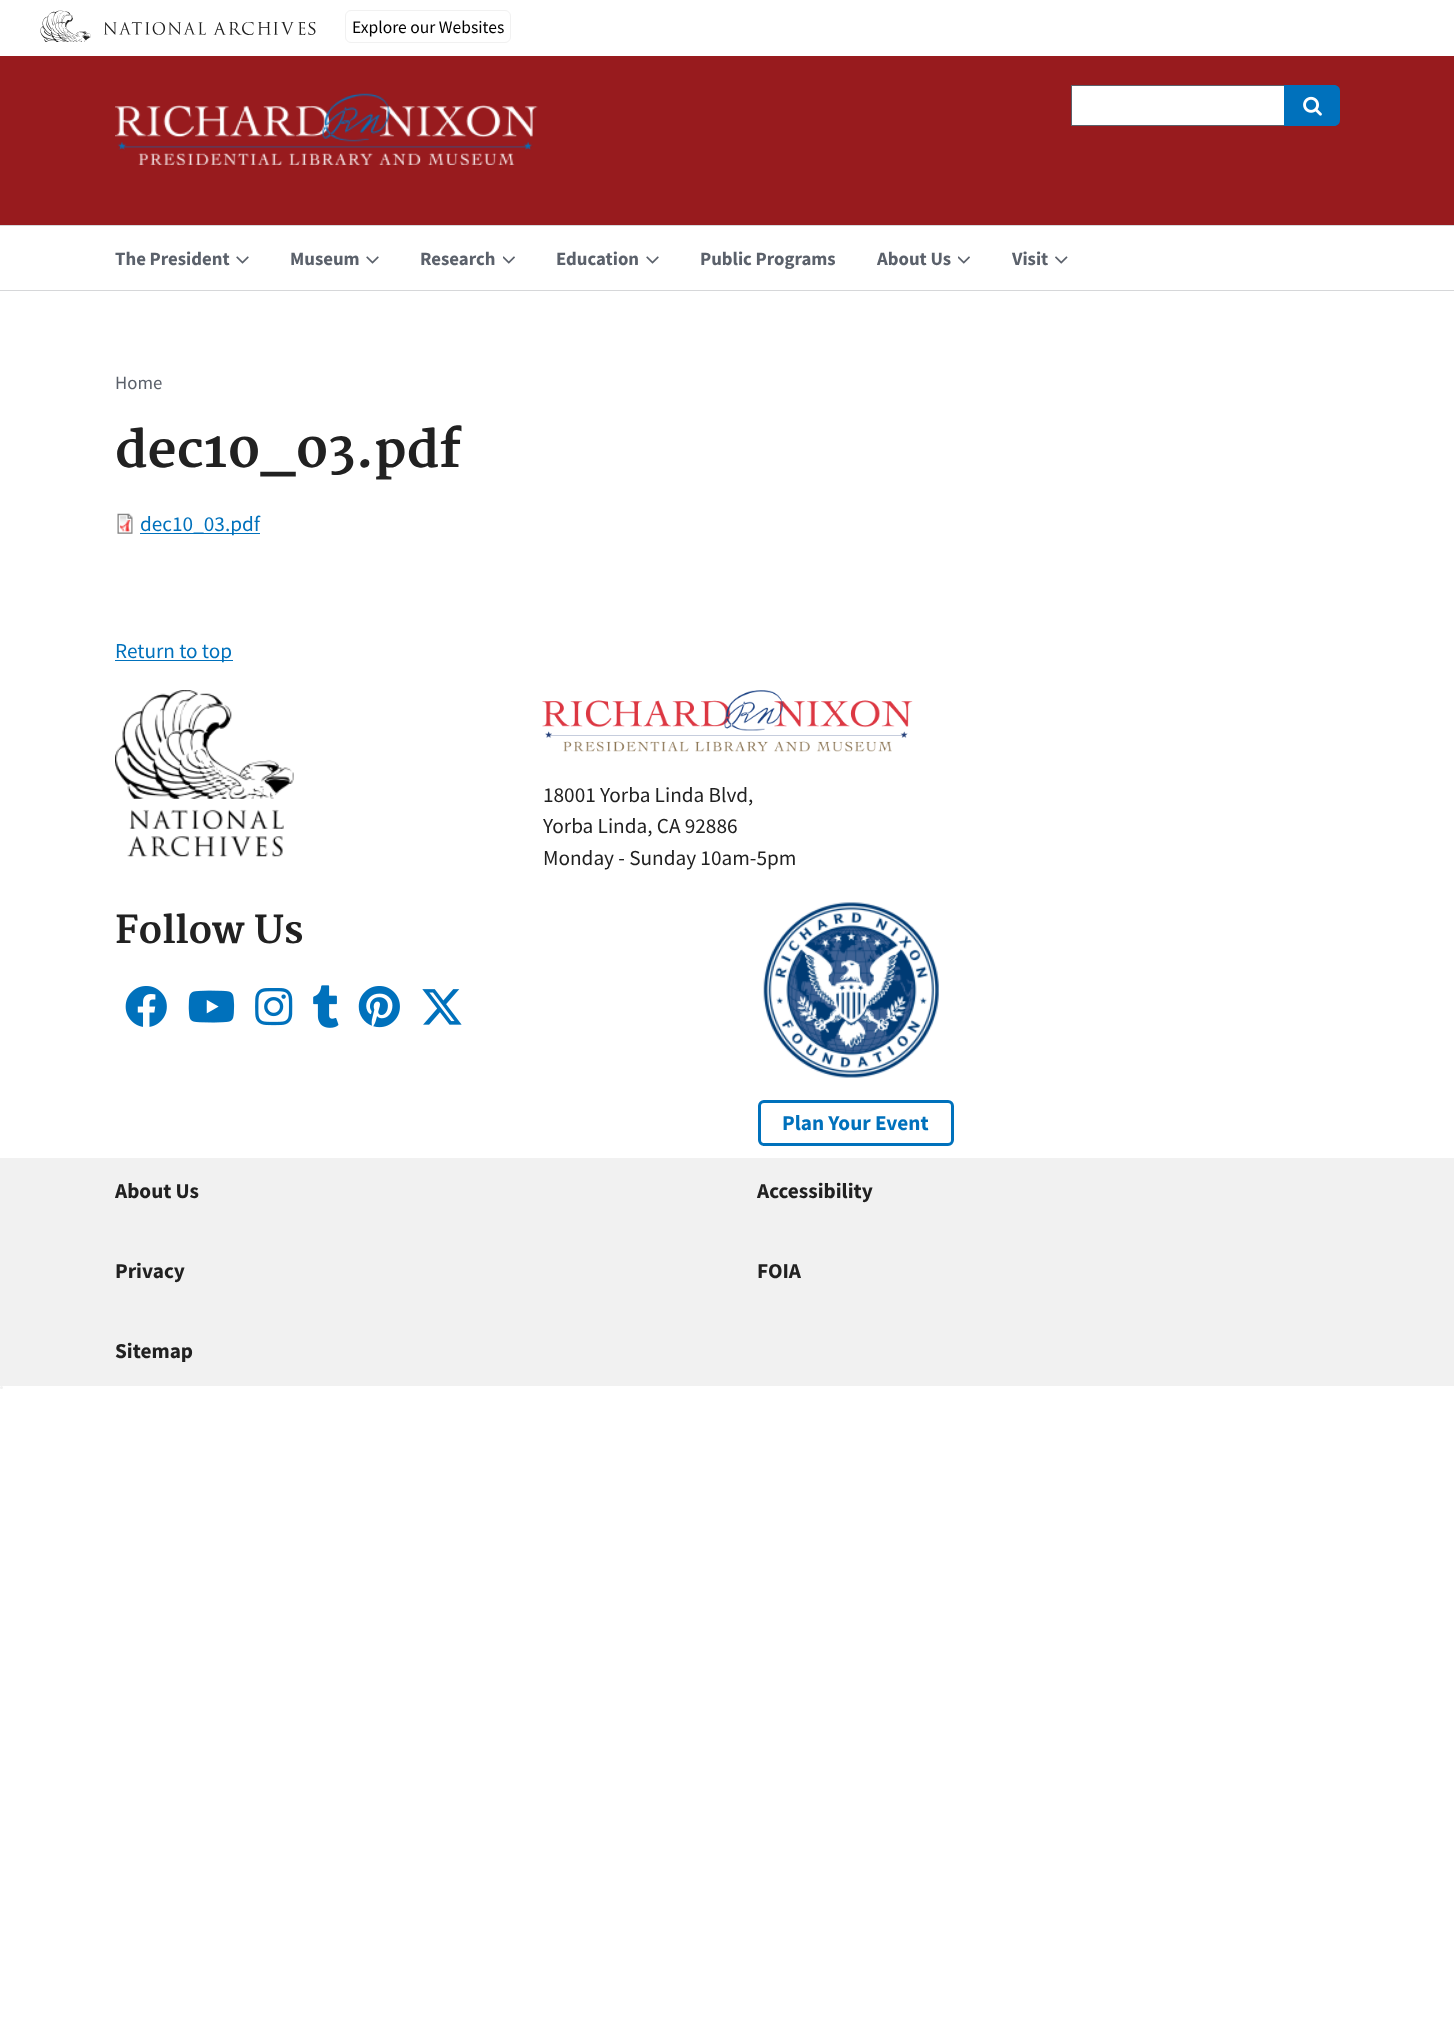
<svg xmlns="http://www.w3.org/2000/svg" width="1454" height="2032">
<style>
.a{font:17.5px Source Sans Pro;fill:#000}
.b{font:bold 18.75px Source Sans Pro;fill:#5b616b}
.c{font:18.75px Source Sans Pro;fill:#5b616b}
.d{font:bold 50px Merriweather;fill:#212121}
.e{font:21.25px Source Sans Pro;fill:#0071bc}
.f{font:21.25px Source Sans Pro;fill:#212121}
.g{font:bold 37.5px Merriweather;fill:#212121}
.h{font:bold 21.25px Source Sans Pro;fill:#0071bc}
.i{font:bold 21.25px Source Sans Pro;fill:#212121}
</style>
<rect width="100%" height="100%" fill="#fff"/>
<image href="1.png" x="40" y="10" width="276" height="32"/>
<rect fill="none" stroke="#f1f1f1" x="345.5" y="10.5" width="165" height="32" rx="5.5"/>
<path fill="#981b1e" d="M0 56h1454v169H0z"/>
<path fill="#d6d7d9" d="M0 290h1454v1H0z"/>
<image href="2.png" x="115" y="93" width="423" height="72"/>
<path fill="#fff" d="M1072 86h212v39H1072z"/>
<path fill="#5b616b" d="M1071 85h213v1H1071z"/>
<path fill="#5b616b" d="M1071 125h213v1H1071z"/>
<path fill="#5b616b" d="M1071 85h1v41H1071z"/>
<path fill="#0071bc" d="M1284 85h50c3.5 0 6 2.5 6 6v29c0 3.5-2.5 6-6 6h-50z"/>
<image href="3.png" x="1303" y="96" width="19" height="20"/>
<path fill="#d6d7d9" d="M0 225h1454v1H0z"/>
<image href="4.png" x="236" y="256" width="13" height="8"/>
<image href="4.png" x="366" y="256" width="13" height="8"/>
<image href="5.png" x="503" y="256" width="12" height="8"/>
<image href="4.png" x="646" y="256" width="13" height="8"/>
<image href="5.png" x="958" y="256" width="12" height="8"/>
<image href="6.png" x="1055" y="256" width="13" height="8"/>
<image href="7.png" x="117" y="513" width="16" height="21"/>
<path fill="#0071bc" d="M140 533h120v1H140z"/>
<path fill="#0071bc" d="M115 660h118v1H115z"/>
<image href="8.png" x="115" y="690" width="179" height="167"/>
<image href="9.png" x="542" y="690" width="371" height="62"/>
<image href="10.png" x="125" y="986" width="42" height="41"/>
<image href="11.png" x="188" y="990" width="47" height="33"/>
<image href="12.png" x="255" y="988" width="38" height="38"/>
<image href="13.png" x="313" y="985" width="26" height="43"/>
<image href="14.png" x="358" y="986" width="42" height="42"/>
<image href="15.png" x="422" y="989" width="40" height="36"/>
<image href="16.png" x="763" y="902" width="176" height="176"/>
<rect fill="none" stroke="#0071bc" stroke-width="3" x="759.5" y="1101.5" width="193" height="43" rx="4.5"/>
<path fill="#f1f1f1" d="M0 1158h1454v228H0z"/>
<circle fill="#f1f1f1" cx="1.5" cy="1387.5" r="1.5"/>
<text class="a" x="352" y="33">Explore our Websites</text>
<text class="b" x="115" y="265">The President</text>
<text class="b" x="290" y="265">Museum</text>
<text class="b" x="420" y="265">Research</text>
<text class="b" x="556" y="265">Education</text>
<text class="b" x="700" y="265">Public Programs</text>
<text class="b" x="877" y="265">About Us</text>
<text class="b" x="1012" y="265">Visit</text>
<text class="c" x="115" y="389">Home</text>
<text class="d" x="115" y="467">dec10_03.pdf</text>
<text class="e" x="140" y="531">dec10_03.pdf</text>
<text class="e" x="115" y="658">Return to top</text>
<text class="f" x="543" y="802">18001 Yorba Linda Blvd,</text>
<text class="f" x="543" y="833">Yorba Linda, CA 92886</text>
<text class="f" x="543" y="865">Monday - Sunday 10am-5pm</text>
<text class="g" x="115" y="943">Follow Us</text>
<text class="h" x="782" y="1130">Plan Your Event</text>
<text class="i" x="115" y="1198">About Us</text>
<text class="i" x="757" y="1198">Accessibility</text>
<text class="i" x="115" y="1278">Privacy</text>
<text class="i" x="757" y="1278">FOIA</text>
<text class="i" x="115" y="1358">Sitemap</text>
</svg>
